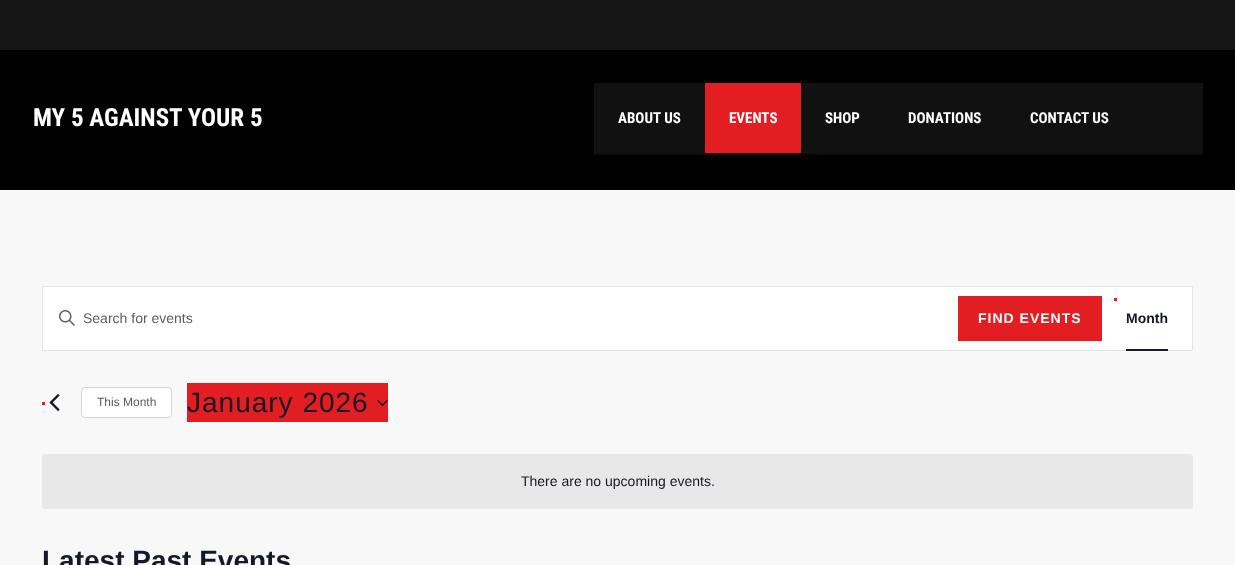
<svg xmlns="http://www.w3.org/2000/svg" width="1235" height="565">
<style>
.a{font:bold 25px Roboto Condensed;fill:#fff}
.b{font:bold 15px Roboto Condensed;fill:#fff}
.c{font:14px Liberation Sans;fill:#5d5d5d}
.d{font:bold 14px Liberation Sans;letter-spacing:1px;fill:#fff}
.e{font:bold 14px Liberation Sans;fill:#141827}
.f{font:12px Liberation Sans;fill:#5d5d5d}
.g{font:28px Liberation Sans;letter-spacing:1px;fill:#141827}
.h{font:14px Liberation Sans;fill:#141827}
.i{font:bold 28px Liberation Sans;fill:#141827}
</style>
<rect width="100%" height="100%" fill="#f8f8f8"/>
<path fill="#151515" d="M0 0h1235v50H0z"/>
<path fill="#000" d="M0 50h1235v140H0z"/>
<path fill="#111" d="M594 83h609v70H594z"/>
<path fill="#e21e22" d="M705 83h96v70H705z"/>
<path fill="#0b0b0b" d="M594 153h609v2H594z"/>
<path fill="#fff" stroke="#e4e4e4" d="M42.5 286.5h1150v64H42.5z"/>
<image href="1.png" x="59" y="310" width="16" height="16"/>
<path fill="#e21e22" d="M958 296h144v45H958z"/>
<path fill="#e21e22" d="M1114 298h3v3H1114z"/>
<path fill="#141827" d="M1126 349h42v2H1126z"/>
<path fill="#e21e22" d="M42 402h3v3H42z"/>
<image href="2.png" x="49" y="393" width="11" height="19"/>
<rect fill="#fff" stroke="#d5d5d5" x="81.5" y="387.5" width="90" height="30" rx="3.5"/>
<path fill="#e21e22" d="M187 383h201v39H187z"/>
<image href="3.png" x="377" y="399" width="11" height="8"/>
<rect fill="#e8e8e9" x="42" y="454" width="1151" height="55" rx="4"/>
<text class="a" x="33" y="126">MY 5 AGAINST YOUR 5</text>
<text class="b" x="618" y="123">ABOUT US</text>
<text class="b" x="729" y="123">EVENTS</text>
<text class="b" x="825" y="123">SHOP</text>
<text class="b" x="908" y="123">DONATIONS</text>
<text class="b" x="1030" y="123">CONTACT US</text>
<text class="c" x="83" y="323">Search for events</text>
<text class="d" x="978" y="323">FIND EVENTS</text>
<text class="e" x="1126" y="323">Month</text>
<text class="f" x="97" y="406">This Month</text>
<text class="g" x="187" y="412">January 2026</text>
<text class="h" x="521" y="486">There are no upcoming events.</text>
<text class="i" x="42" y="570">Latest Past Events</text>
</svg>
